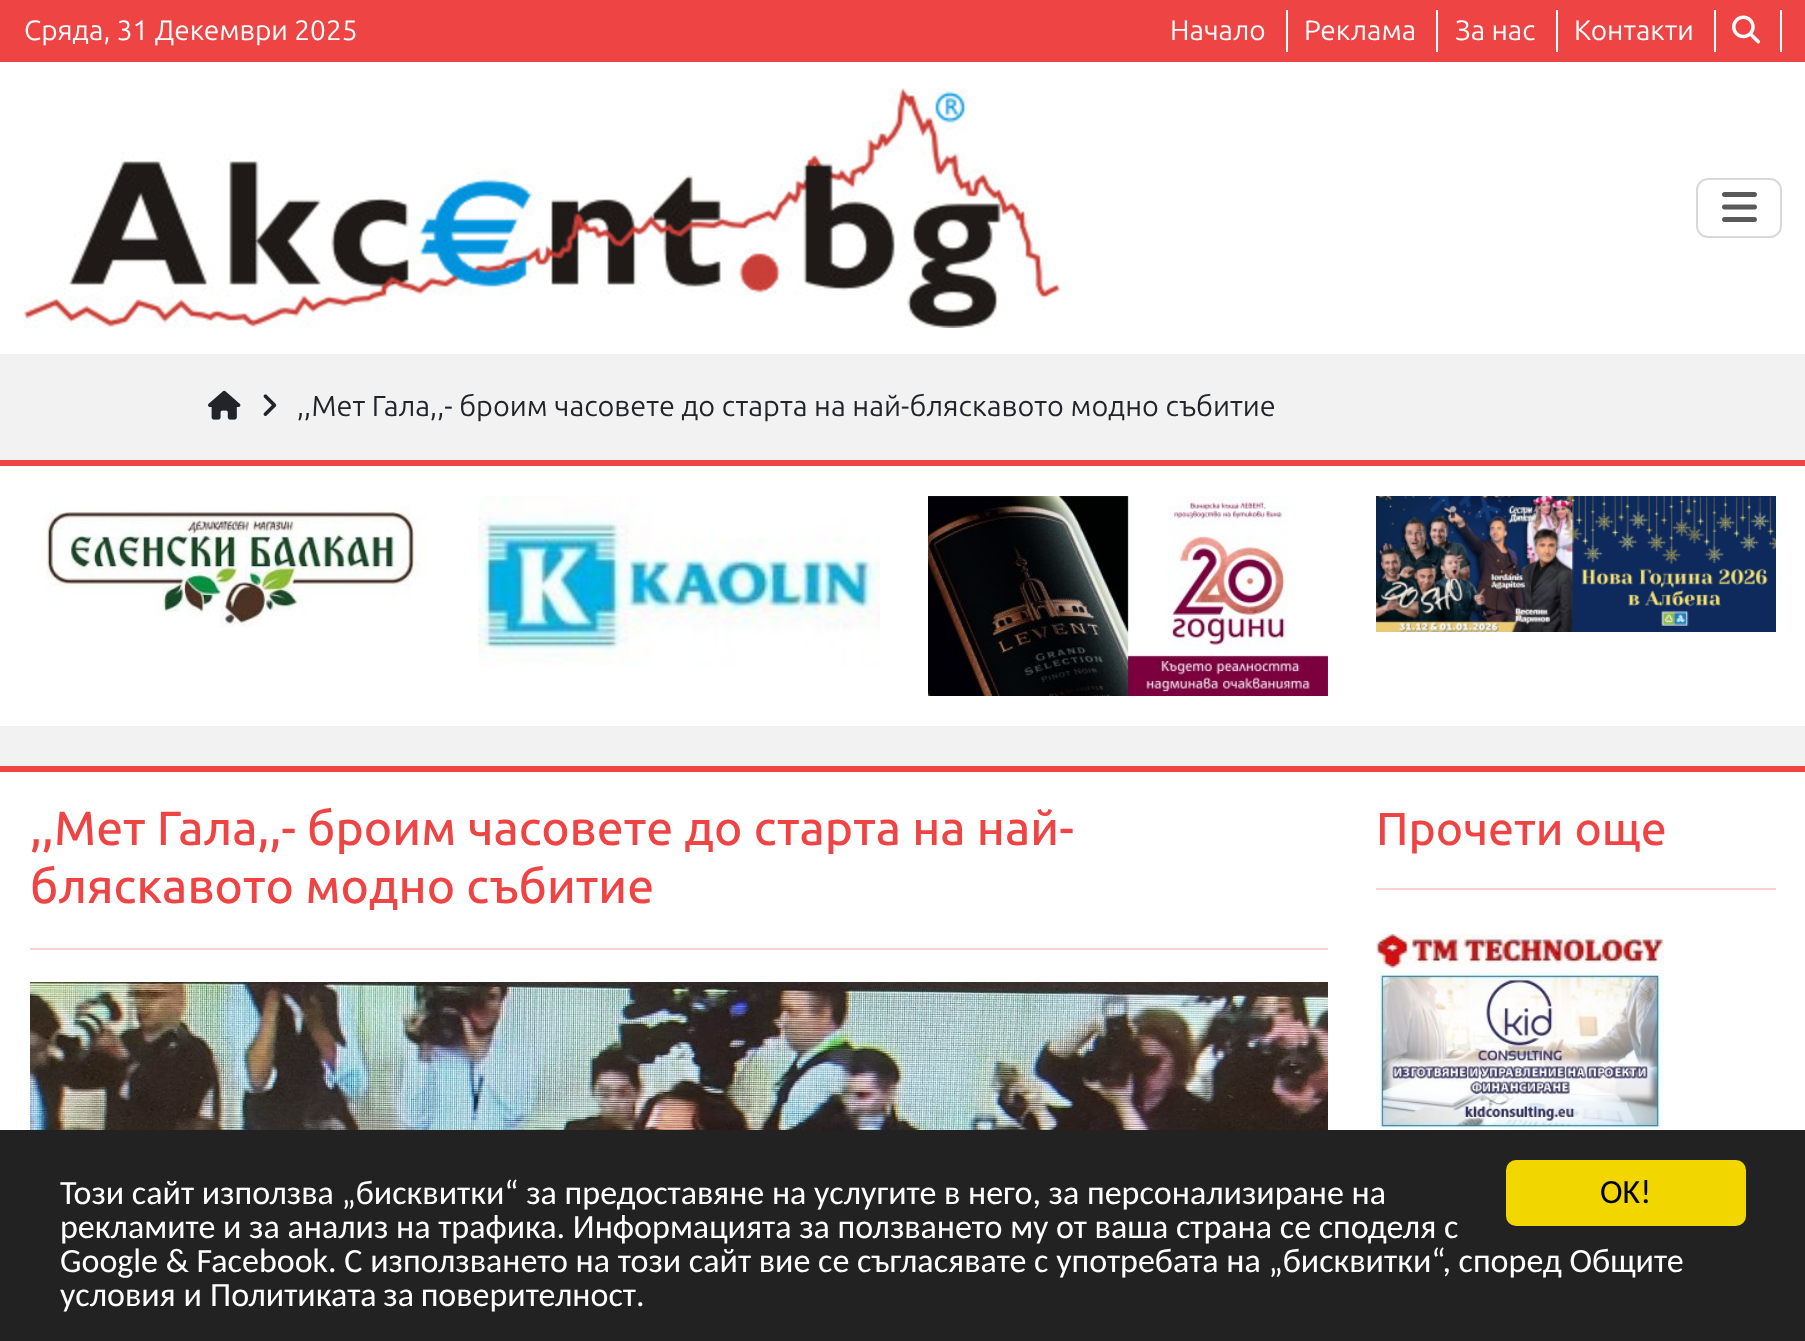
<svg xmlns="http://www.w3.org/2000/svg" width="1805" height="1341">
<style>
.a{font:28px Ubuntu;fill:#fff}
.b{font:28.8px Ubuntu;fill:#212529}
.c{font:500 48px Ubuntu;fill:#ef4444}
.d{font:500 46.25px Ubuntu;fill:#ef4444}
.e{font:34px Carlito;fill:#fff}
.f{font:34px Carlito;fill:#000}
</style>
<rect width="100%" height="100%" fill="#f2f2f2"/>
<path fill="#fff" d="M0 62h1805v292H0z"/>
<path fill="#ef4444" d="M0 0h1805v62H0z"/>
<path fill="#fff" d="M1286 10h2v42H1286z"/>
<path fill="#fff" d="M1436 10h2v42H1436z"/>
<path fill="#fff" d="M1556 10h2v42H1556z"/>
<path fill="#fff" d="M1714 10h2v42H1714z"/>
<path fill="#fff" d="M1780 10h2v42H1780z"/>
<image href="1.png" x="1732" y="15" width="28" height="29"/>
<image href="2.png" x="24" y="88" width="1036" height="240"/>
<rect fill="none" stroke="#d9d9d9" stroke-width="2" x="1697" y="179" width="84" height="58" rx="11"/>
<image href="3.png" x="1722" y="192" width="35" height="30"/>
<image href="4.png" x="208" y="390" width="33" height="30"/>
<image href="5.png" x="263" y="394" width="14" height="22"/>
<path fill="#fff" d="M0 466h1805v260H0z"/>
<path fill="#ef4444" d="M0 460h1805v6H0z"/>
<image href="6.png" x="42" y="506" width="385" height="122"/>
<image href="7.png" x="478" y="496" width="402" height="171"/>
<image href="8.png" x="928" y="496" width="400" height="200"/>
<image href="9.png" x="1376" y="496" width="400" height="136"/>
<path fill="#fff" d="M0 772h1805v358H0z"/>
<path fill="#ef4444" d="M0 766h1805v6H0z"/>
<path fill="#fbd0d0" d="M30 948h1298v2H30z"/>
<image href="10.png" x="30" y="982" width="1298" height="148"/>
<path fill="#fbd0d0" d="M1376 888h400v2H1376z"/>
<image href="11.png" x="1376" y="934" width="288" height="34"/>
<image href="12.png" x="1376" y="970" width="288" height="160"/>
<path fill="#222" d="M0 1130h1805v211H0z"/>
<rect fill="#f1d600" x="1506" y="1160" width="240" height="66" rx="10"/>
<text class="a" x="24" y="40">Сряда, 31 Декември 2025</text>
<text class="a" x="1170" y="40">Начало</text>
<text class="a" x="1304" y="40">Реклама</text>
<text class="a" x="1455" y="40">За нас</text>
<text class="a" x="1574" y="40">Контакти</text>
<text class="b" x="297" y="416">,,Мет Гала,,- броим часовете до старта на най-бляскавото модно събитие</text>
<text class="c" x="30" y="845">,,Мет Гала,,- броим часовете до старта на най-</text>
<text class="c" x="30" y="903">бляскавото модно събитие</text>
<text class="d" x="1376" y="845">Прочети още</text>
<text class="e" x="60" y="1204">Този сайт използва „бисквитки“ за предоставяне на услугите в него, за персонализиране на</text>
<text class="e" x="60" y="1238">рекламите и за анализ на трафика. Информацията за ползването му от ваша страна се споделя с</text>
<text class="e" x="60" y="1272">Google &amp; Facebook. С използването на този сайт вие се съгласявате с употребата на „бисквитки“, според Общите</text>
<text class="e" x="60" y="1306">условия и</text>
<text class="e" x="210" y="1306" word-spacing="-1">Политиката за поверителност</text>
<text class="e" x="636" y="1306">.</text>
<text class="f" x="1600" y="1203">OK!</text>
</svg>
